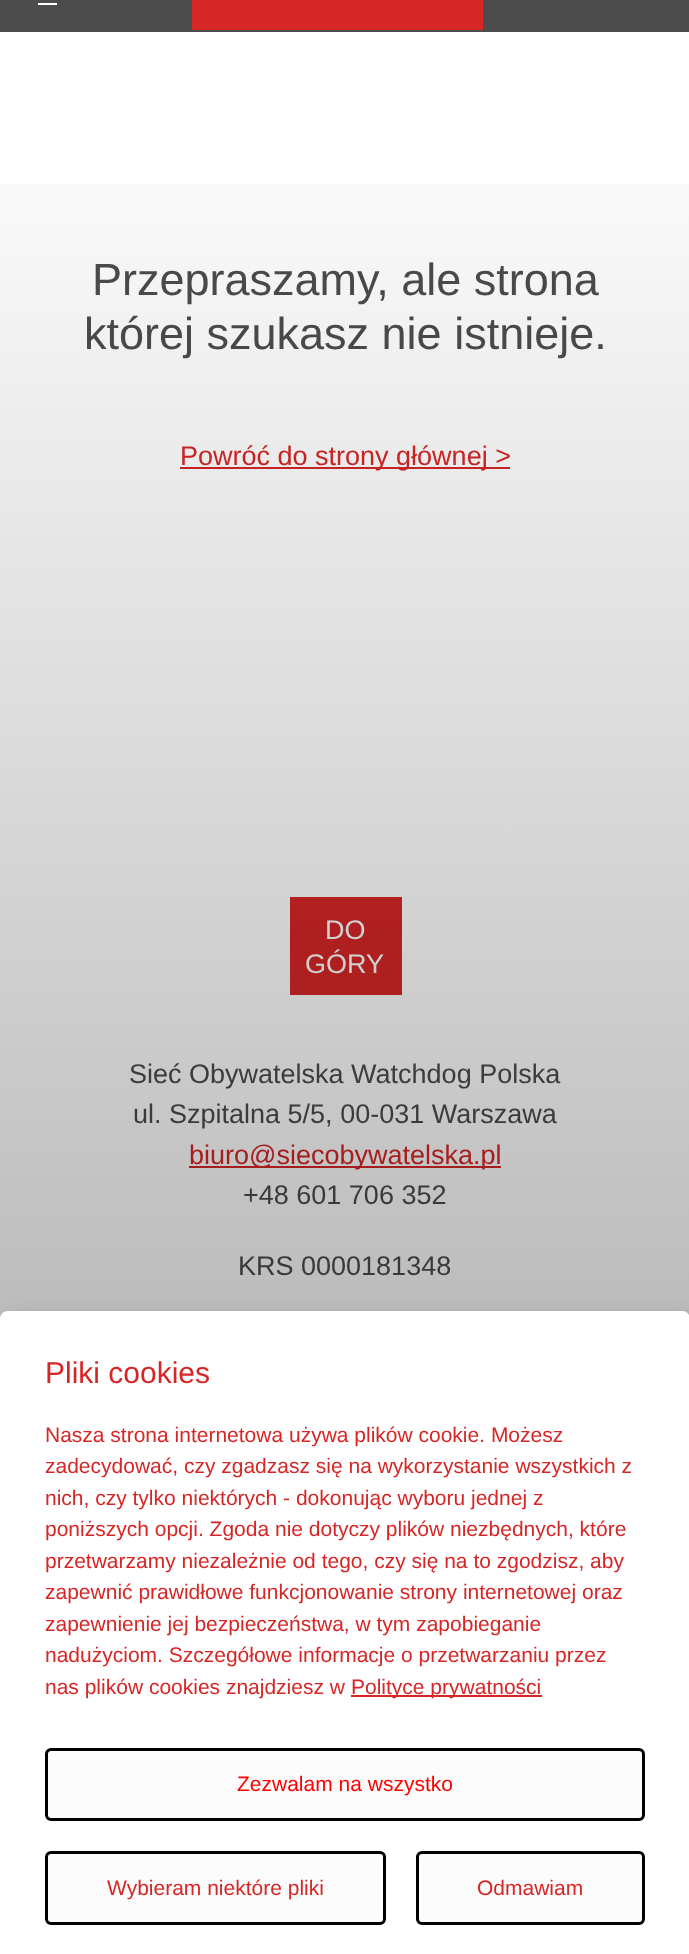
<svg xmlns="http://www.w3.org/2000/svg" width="689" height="1954">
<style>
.a{font:45px Liberation Sans;fill:#4c4c4c}
.b{font:27px Liberation Sans;fill:#d72626}
.c{font:27px Liberation Sans;fill:#fff}
.d{font:27px Liberation Sans;fill:#4c4c4c}
.e{font:30px Liberation Sans;fill:#d72626}
.f{font:21px Liberation Sans;fill:#d72626}
.g{font:21px Liberation Sans;fill:#f00}
</style>
<defs>
<linearGradient id="g1" gradientUnits="userSpaceOnUse" x1="345" y1="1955" x2="345" y2="83"><stop offset="0" stop-color="#000" stop-opacity="0.4"/><stop offset="1" stop-color="#000" stop-opacity="0"/></linearGradient>
</defs>
<rect width="100%" height="100%" fill="#fff"/>
<path fill="#4c4c4c" d="M0 0h689v32H0z"/>
<path fill="#fff" d="M38 3h19v2H38z"/>
<path fill="#d72626" d="M192 0h291v30H192z"/>
<path fill="#d72626" d="M180 467h330v2H180z"/>
<path fill="#d72626" d="M290 897h112v98H290z"/>
<path fill="#d72626" d="M189 1166h312v2H189z"/>
<text class="a" x="92" y="295">Przepraszamy, ale strona</text>
<text class="a" x="84" y="349">której szukasz nie istnieje.</text>
<text class="b" x="180" y="465">Powróć do strony głównej &gt;</text>
<text class="c" x="325" y="939">DO</text>
<text class="c" x="305" y="973">GÓRY</text>
<text class="d" x="129" y="1083">Sieć Obywatelska Watchdog Polska</text>
<text class="d" x="133" y="1123">ul. Szpitalna 5/5, 00-031 Warszawa</text>
<text class="b" x="189" y="1164">biuro@siecobywatelska.pl</text>
<text class="d" x="243" y="1204">+48 601 706 352</text>
<text class="d" x="238" y="1275">KRS 0000181348</text>
<path fill="url(#g1)" d="M0 184h689v1135H0z"/>
<rect fill="#00000033" filter="blur(13px)" x="8" y="1322" width="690" height="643" rx="8"/>
<path fill="#fff" d="M8 1311h674c4.5 0 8 3.5 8 8v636h-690v-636c0-4.5 3.5-8 8-8z"/>
<text class="e" x="45" y="1383">Pliki cookies</text>
<text class="f" x="45" y="1442">Nasza strona internetowa używa plików cookie. Możesz</text>
<text class="f" x="45" y="1473">zadecydować, czy zgadzasz się na wykorzystanie wszystkich z</text>
<text class="f" x="45" y="1505">nich, czy tylko niektórych - dokonując wyboru jednej z</text>
<text class="f" x="45" y="1536">poniższych opcji. Zgoda nie dotyczy plików niezbędnych, które</text>
<text class="f" x="45" y="1568">przetwarzamy niezależnie od tego, czy się na to zgodzisz, aby</text>
<text class="f" x="45" y="1599">zapewnić prawidłowe funkcjonowanie strony internetowej oraz</text>
<text class="f" x="45" y="1631">zapewnienie jej bezpieczeństwa, w tym zapobieganie</text>
<text class="f" x="45" y="1662">nadużyciom. Szczegółowe informacje o przetwarzaniu przez</text>
<text class="f" x="45" y="1694">nas plików cookies znajdziesz w</text>
<path fill="#d72626" d="M351 1695h191v2H351z"/>
<text class="f" x="351" y="1694">Polityce prywatności</text>
<rect fill="#fcfcfc" stroke="#000" stroke-width="3" x="46.5" y="1749.5" width="597" height="70" rx="4.5"/>
<text class="g" x="237" y="1791">Zezwalam na wszystko</text>
<rect fill="#fcfcfc" stroke="#000" stroke-width="3" x="46.5" y="1852.5" width="338" height="71" rx="4.5"/>
<text class="f" x="107" y="1895">Wybieram niektóre pliki</text>
<rect fill="#fcfcfc" stroke="#000" stroke-width="3" x="417.5" y="1852.5" width="226" height="71" rx="4.5"/>
<text class="f" x="477" y="1895">Odmawiam</text>
</svg>
